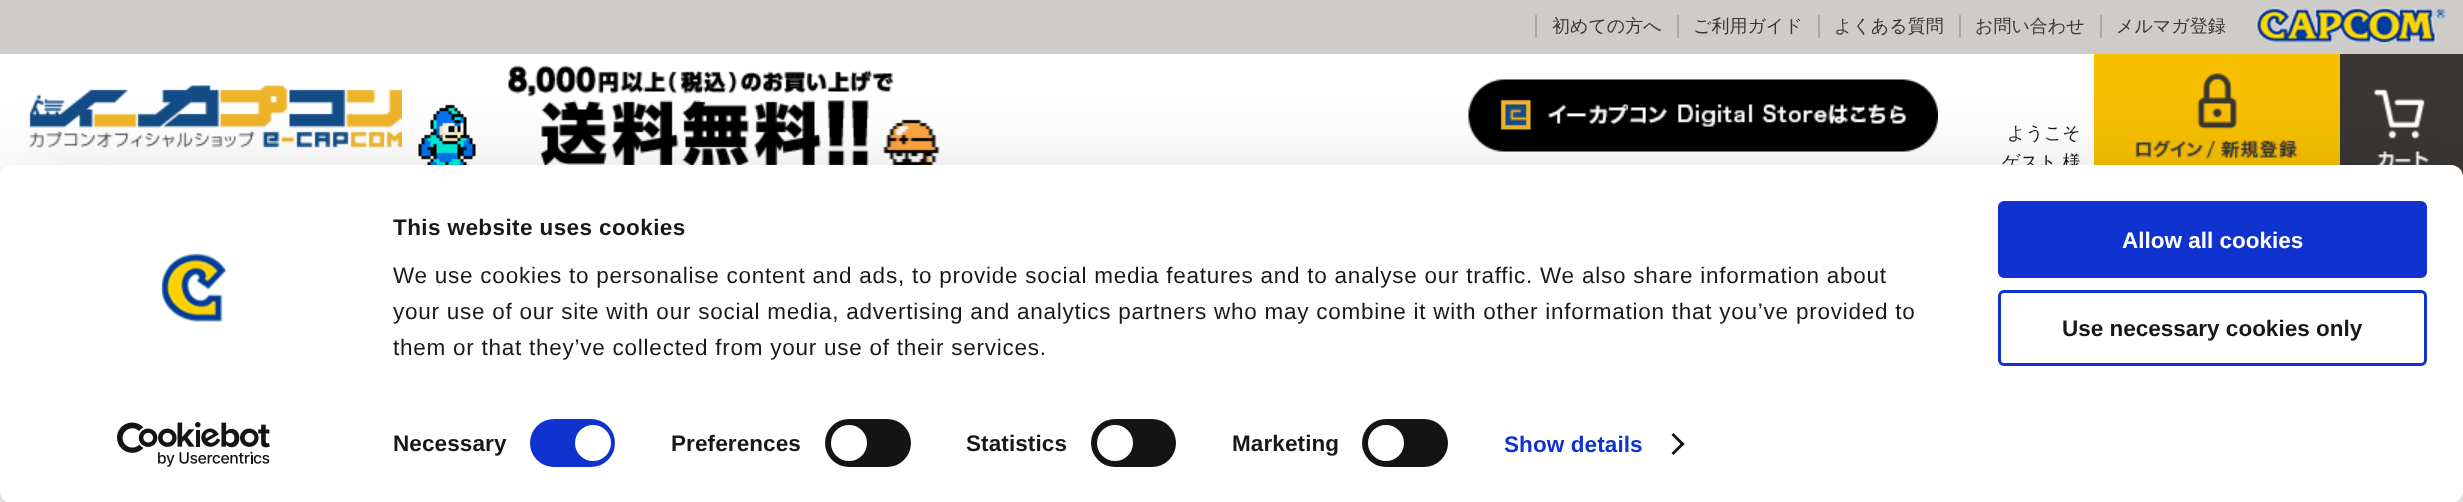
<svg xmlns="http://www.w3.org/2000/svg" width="2463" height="502">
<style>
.a{font:500 18px WenQuanYi Zen Hei;fill:#393633}
.b{font:500 18px WenQuanYi Zen Hei;fill:#181818}
.c{font:bold 22.5px Liberation Sans;letter-spacing:0.4px;fill:#181818}
.d{font:22.5px Liberation Sans;letter-spacing:0.75px;fill:#181818}
.e{font:bold 22.5px Liberation Sans;letter-spacing:0.1px;fill:#181818}
.f{font:bold 22.5px Liberation Sans;letter-spacing:0.1px;fill:#1032cf}
.g{font:bold 22.5px Liberation Sans;fill:#fff}
.h{font:bold 22.5px Liberation Sans;fill:#181818}
</style>
<rect width="100%" height="100%" fill="#fff"/>
<path fill="#ceccc8" d="M0 0h2463v54H0z"/>
<path fill="#aba8a4" d="M1535 15h2v23H1535z"/>
<path fill="#aba8a4" d="M1677 15h2v23H1677z"/>
<path fill="#aba8a4" d="M1818 15h2v23H1818z"/>
<path fill="#aba8a4" d="M1959 15h2v23H1959z"/>
<path fill="#aba8a4" d="M2100 15h2v23H2100z"/>
<image href="1.png" x="2256" y="7" width="191" height="37"/>
<image href="2.png" x="29" y="85" width="373" height="63"/>
<image href="3.png" x="415" y="65" width="525" height="100"/>
<image href="4.png" x="1468" y="79" width="470" height="73"/>
<image href="5.png" x="2094" y="54" width="246" height="111"/>
<image href="6.png" x="2340" y="54" width="123" height="123"/>
<rect fill="#0000004d" filter="blur(52.5px)" y="210" width="2463" height="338" rx="12"/>
<text class="a" x="1552" y="32">初めての方へ</text>
<text class="a" x="1693" y="32">ご利用ガイド</text>
<text class="a" x="1834" y="32">よくある質問</text>
<text class="a" x="1975" y="32">お問い合わせ</text>
<text class="a" x="2116" y="32">メルマガ登録</text>
<text class="b" x="2007" y="139">ようこそ</text>
<text class="b" x="2002" y="168">ゲスト 様</text>
<rect fill="#fff" y="165" width="2463" height="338" rx="12"/>
<image href="7.png" x="161" y="253" width="66" height="69"/>
<image href="8.png" x="117" y="422" width="153" height="45"/>
<text class="c" x="393" y="235">This website uses cookies</text>
<text class="d" x="393" y="283">We use cookies to personalise content and ads, to provide social media features and to analyse our traffic. We also share information about</text>
<text class="d" x="393" y="319">your use of our site with our social media, advertising and analytics partners who may combine it with other information that you’ve provided to</text>
<text class="d" x="393" y="355">them or that they’ve collected from your use of their services.</text>
<text class="e" x="393" y="451">Necessary</text>
<rect fill="#1032cf" x="530" y="419" width="85" height="48" rx="24"/>
<circle fill="#fff" cx="593" cy="443" r="18"/>
<text class="e" x="671" y="451">Preferences</text>
<rect fill="#141414" x="825" y="419" width="86" height="48" rx="24"/>
<circle fill="#fff" cx="849" cy="443" r="18"/>
<text class="e" x="966" y="451">Statistics</text>
<rect fill="#141414" x="1091" y="419" width="85" height="48" rx="24"/>
<circle fill="#fff" cx="1115" cy="443" r="18"/>
<text class="e" x="1232" y="451">Marketing</text>
<rect fill="#141414" x="1362" y="419" width="86" height="48" rx="24"/>
<circle fill="#fff" cx="1386" cy="443" r="18"/>
<text class="f" x="1504" y="452">Show details</text>
<path fill="#141414" d="M1673.5 433l11 11l-2 2l-11-11z"/>
<path fill="#141414" d="M1682.5 442l2 2l-11 11l-2-2z"/>
<rect fill="#1032cf" stroke="#1032cf" stroke-width="3" x="1999.5" y="202.5" width="426" height="74" rx="4.5"/>
<text class="g" x="2122" y="248">Allow all cookies</text>
<rect fill="none" stroke="#1032cf" stroke-width="3" x="1999.5" y="291.5" width="426" height="73" rx="4.5"/>
<text class="h" x="2062" y="336">Use necessary cookies only</text>
</svg>
